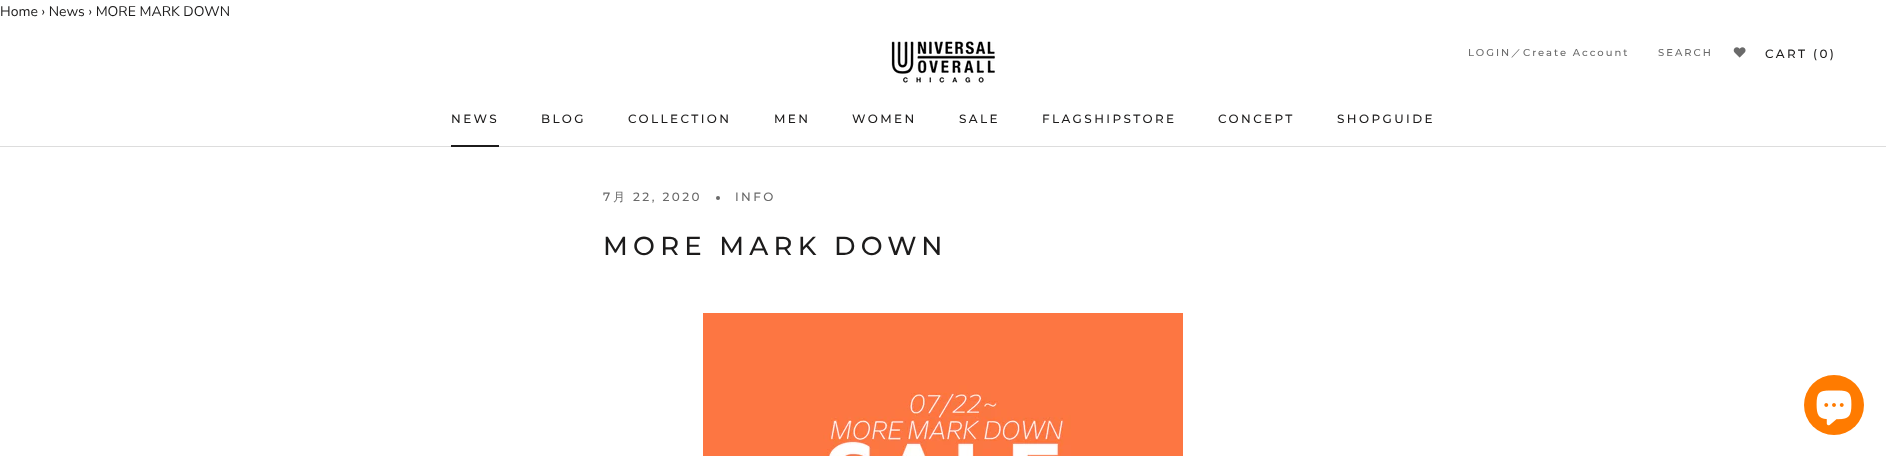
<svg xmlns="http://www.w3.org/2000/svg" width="1886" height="456">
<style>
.a{font:14px Nunito Sans;fill:#1c1b1b}
.b{font:500 10px Montserrat;letter-spacing:2px;fill:#6a6a6a}
.c{font:500 10px WenQuanYi Zen Hei;letter-spacing:2px;fill:#6a6a6a}
.d{font:500 12px Montserrat;letter-spacing:2.4px;fill:#1c1b1b}
.e{font:500 12px Montserrat;letter-spacing:2.4px;fill:#6a6a6a}
.f{font:500 12px WenQuanYi Zen Hei;letter-spacing:2.4px;fill:#6a6a6a}
.g{font:500 26px Montserrat;letter-spacing:5.25px;fill:#1c1b1b}
</style>
<rect width="100%" height="100%" fill="#fff"/>
<path fill="#ddd" d="M0 146h1886v1H0z"/>
<image href="1.png" x="891" y="41" width="104" height="42"/>
<image href="2.png" x="1733" y="47" width="13" height="11"/>
<path fill="#1c1b1b" d="M451 145h48v2H451z"/>
<circle fill="#6a6a6a" cx="718" cy="198" r="2"/>
<image href="3.png" x="703" y="313" width="480" height="143"/>
<circle fill="#ff7b00" cx="1834" cy="405" r="30"/>
<image href="4.png" x="1816" y="390" width="36" height="36"/>
<text class="a" x="0" y="16">Home › News › MORE MARK DOWN</text>
<text class="b" x="1468" y="56">LOGIN</text>
<text class="c" x="1511" y="56">／</text>
<text class="b" x="1523" y="56">Create Account</text>
<text class="b" x="1658" y="56">SEARCH</text>
<text class="d" x="1765" y="58">CART (0)</text>
<text class="d" x="451" y="123">NEWS</text>
<text class="d" x="541" y="123">BLOG</text>
<text class="d" x="628" y="123">COLLECTION</text>
<text class="d" x="774" y="123">MEN</text>
<text class="d" x="852" y="123">WOMEN</text>
<text class="d" x="959" y="123">SALE</text>
<text class="d" x="1042" y="123">FLAGSHIPSTORE</text>
<text class="d" x="1218" y="123">CONCEPT</text>
<text class="d" x="1337" y="123">SHOPGUIDE</text>
<text class="e" x="603" y="201">7</text>
<text class="f" x="613" y="201">月</text>
<text class="e" x="633" y="201">22, 2020</text>
<text class="e" x="735" y="201">INFO</text>
<text class="g" x="603" y="255">MORE MARK DOWN</text>
</svg>
